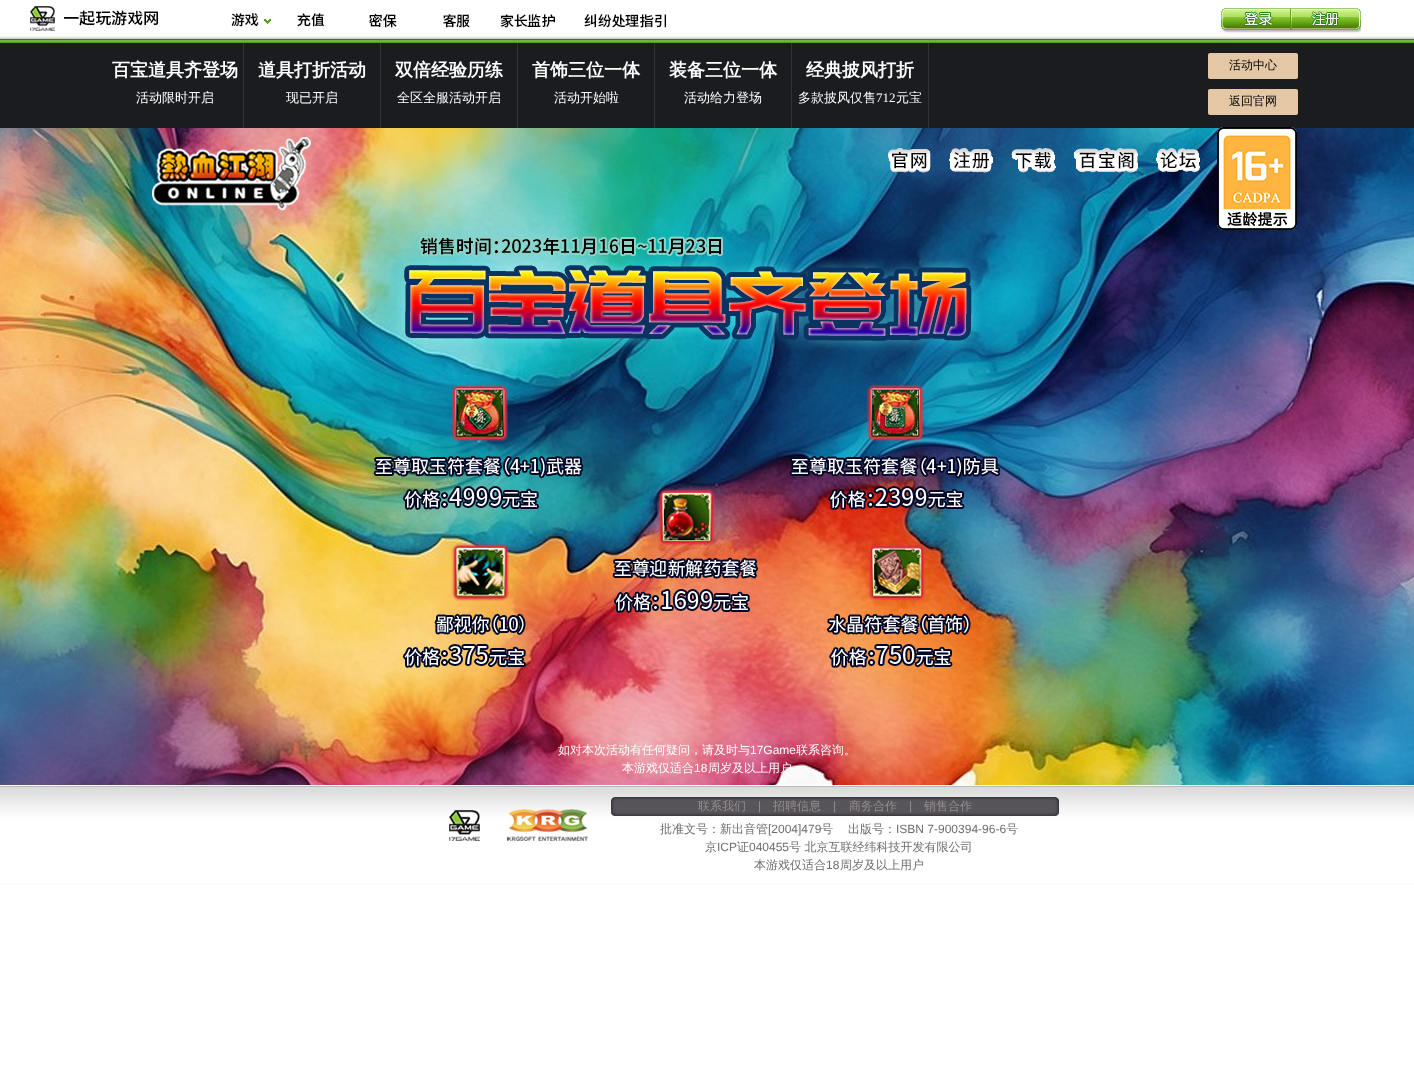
<svg xmlns="http://www.w3.org/2000/svg" width="1414" height="1080">
<style>
.a{font:bold 18px WenQuanYi Zen Hei;fill:#fff}
.b{font:500 13px WenQuanYi Zen Hei;fill:#fff}
.c{font:13px Liberation Serif;fill:#fff}
.d{font:500 12px WenQuanYi Zen Hei;fill:#000}
.e{font:500 12px WenQuanYi Zen Hei;fill:#fff}
.f{font:12px Liberation Sans;fill:#fff}
.g{font:500 12px WenQuanYi Zen Hei;fill:#968f8f}
.h{font:12px Liberation Sans;fill:#968f8f}
.i{font:500 12px WenQuanYi Zen Hei;fill:#6d6d6d}
.j{font:12px Liberation Sans;fill:#6d6d6d}
</style>
<rect width="100%" height="100%" fill="#fff"/>
<image href="1.png" x="0" y="36" width="1414" height="7"/>
<image href="2.png" x="30" y="6" width="128" height="30"/>
<image href="3.png" x="264" y="19" width="7" height="5"/>
<image href="4.png" x="231" y="13" width="28" height="14"/>
<image href="5.png" x="297" y="13" width="28" height="14"/>
<image href="6.png" x="369" y="13" width="28" height="16"/>
<image href="7.png" x="443" y="14" width="27" height="14"/>
<image href="8.png" x="500" y="14" width="55" height="14"/>
<image href="9.png" x="584" y="14" width="82" height="14"/>
<image href="10.png" x="1221" y="8" width="70" height="25"/>
<image href="11.png" x="1291" y="8" width="70" height="25"/>
<path fill="#1b1c20" d="M0 43h1414v85H0z"/>
<path fill="#333" d="M243 43h1v85H243z"/>
<path fill="#333" d="M380 43h1v85H380z"/>
<path fill="#333" d="M517 43h1v85H517z"/>
<path fill="#333" d="M654 43h1v85H654z"/>
<path fill="#333" d="M791 43h1v85H791z"/>
<path fill="#333" d="M928 43h1v85H928z"/>
<rect fill="#e4c8a5" x="1208" y="53" width="90" height="26" rx="2"/>
<rect fill="#e4c8a5" x="1208" y="89" width="90" height="26" rx="2"/>
<image href="12.png" x="0" y="128" width="1414" height="657"/>
<image href="13.png" x="107" y="128" width="1200" height="657"/>
<image href="14.png" x="152" y="137" width="159" height="74"/>
<image href="15.png" x="888" y="148" width="43" height="25"/>
<image href="16.png" x="949" y="148" width="44" height="25"/>
<image href="17.png" x="1011" y="148" width="45" height="25"/>
<image href="18.png" x="1074" y="148" width="64" height="25"/>
<image href="19.png" x="1156" y="148" width="44" height="25"/>
<image href="20.png" x="1217" y="127" width="80" height="103"/>
<image href="21.png" x="0" y="786" width="1414" height="99"/>
<image href="22.png" x="611" y="797" width="448" height="19"/>
<image href="23.png" x="449" y="809" width="139" height="32"/>
<text class="a" x="112" y="76">百宝道具齐登场</text>
<text class="b" x="136" y="102">活动限时开启</text>
<text class="a" x="258" y="76">道具打折活动</text>
<text class="b" x="286" y="102">现已开启</text>
<text class="a" x="395" y="76">双倍经验历练</text>
<text class="b" x="397" y="102">全区全服活动开启</text>
<text class="a" x="532" y="76">首饰三位一体</text>
<text class="b" x="554" y="102">活动开始啦</text>
<text class="a" x="669" y="76">装备三位一体</text>
<text class="b" x="684" y="102">活动给力登场</text>
<text class="a" x="806" y="76">经典披风打折</text>
<text class="b" x="798" y="102">多款披风仅售</text>
<text class="c" x="876" y="102">712</text>
<text class="b" x="896" y="102">元宝</text>
<text class="d" x="1229" y="69">活动中心</text>
<text class="d" x="1229" y="105">返回官网</text>
<text class="e" x="558" y="754">如对本次活动有任何疑问，请及时与</text>
<text class="f" x="750" y="754">17Game</text>
<text class="e" x="796" y="754">联系咨询。</text>
<text class="e" x="622" y="772">本游戏仅适合</text>
<text class="f" x="694" y="772">18</text>
<text class="e" x="708" y="772">周岁及以上用户</text>
<text class="g" x="698" y="810">联系我们</text>
<text class="h" x="758" y="810">|</text>
<text class="g" x="773" y="810">招聘信息</text>
<text class="h" x="833" y="810">|</text>
<text class="g" x="849" y="810">商务合作</text>
<text class="h" x="909" y="810">|</text>
<text class="g" x="924" y="810">销售合作</text>
<text class="i" x="660" y="833">批准文号：新出音管</text>
<text class="j" x="768" y="833">[2004]479</text>
<text class="i" x="821" y="833">号</text>
<text class="i" x="848" y="833">出版号：</text>
<text class="j" x="896" y="833">ISBN 7-900394-96-6</text>
<text class="i" x="1006" y="833">号</text>
<text class="i" x="705" y="851">京</text>
<text class="j" x="717" y="851">ICP</text>
<text class="i" x="737" y="851">证</text>
<text class="j" x="749" y="851">040455</text>
<text class="i" x="789" y="851">号 北京互联经纬科技开发有限公司</text>
<text class="i" x="754" y="869">本游戏仅适合</text>
<text class="j" x="826" y="869">18</text>
<text class="i" x="840" y="869">周岁及以上用户</text>
</svg>
